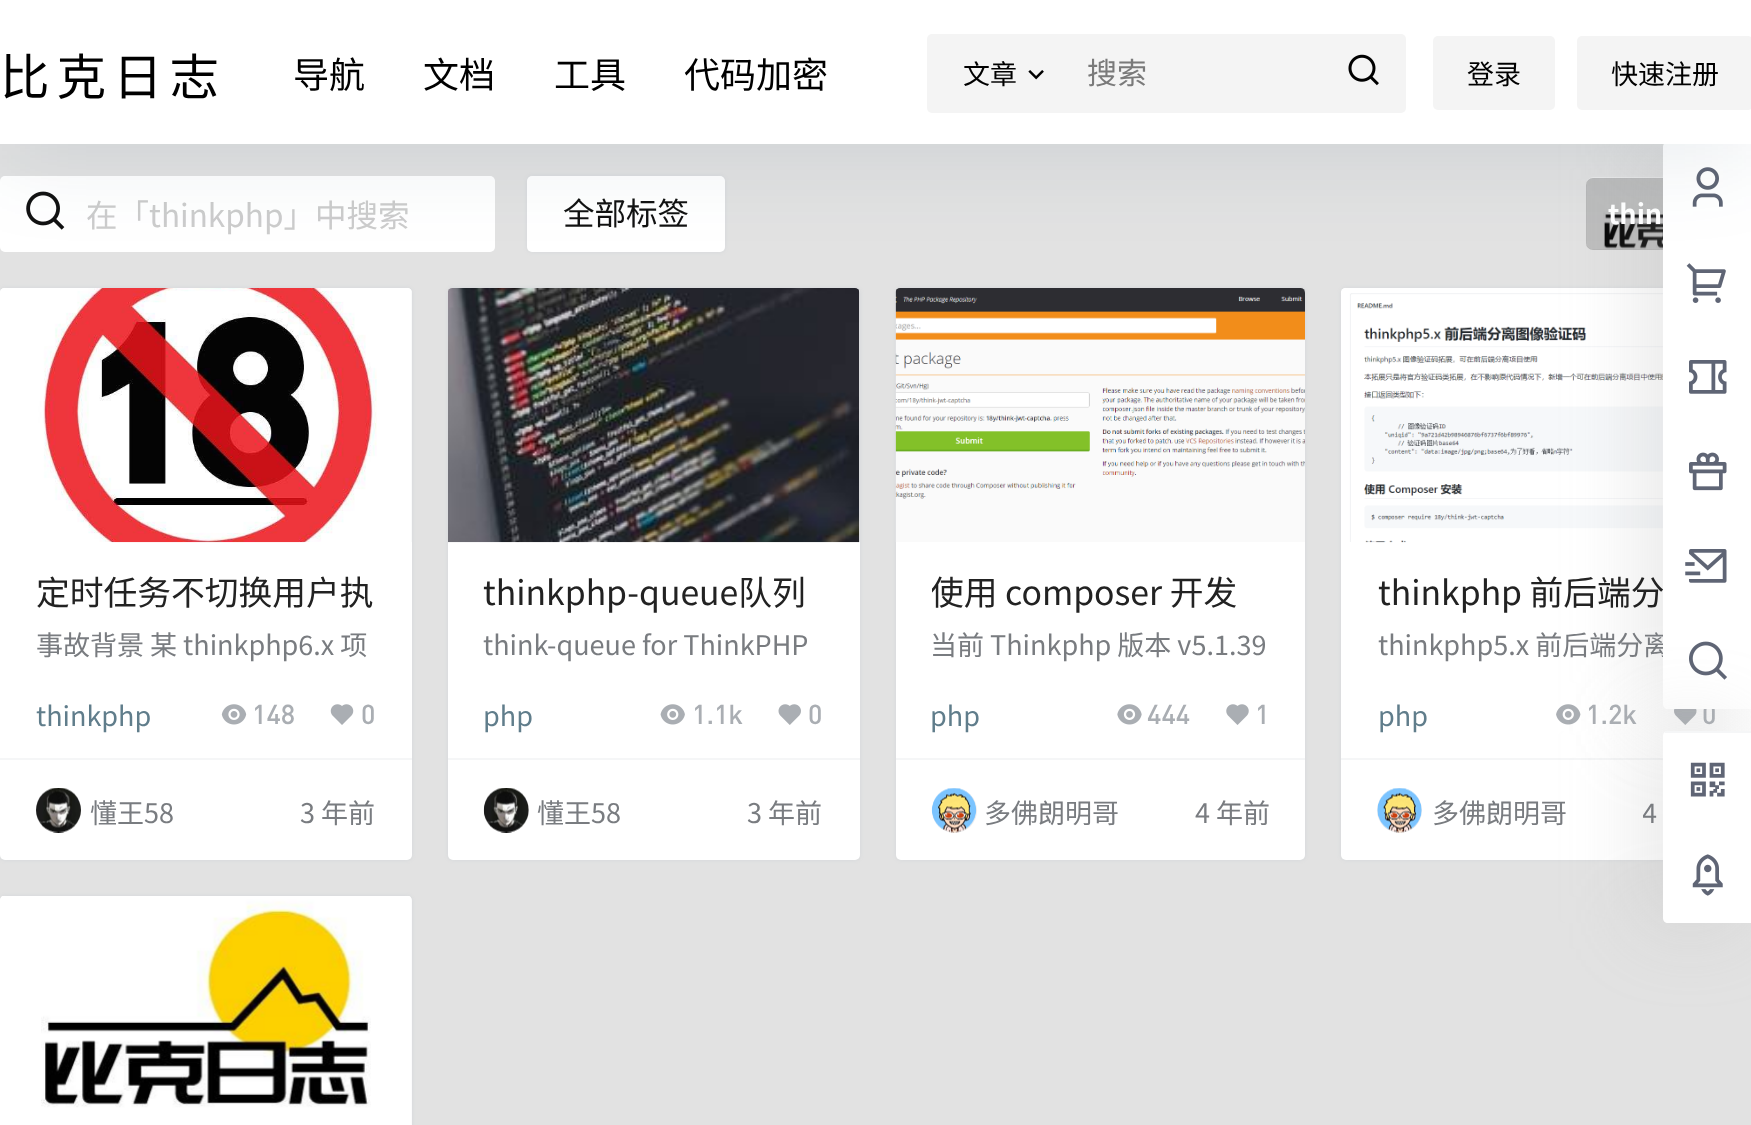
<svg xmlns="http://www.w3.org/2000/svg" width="1751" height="1125">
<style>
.a{font:31.5px Noto Sans CJK SC;fill:#ccc}
.b{font:31.5px Noto Sans CJK SC;fill:#121212}
.c{font:bold 27px Noto Sans CJK SC;fill:#fff}
.d{font:33.75px Noto Sans CJK SC;fill:#222}
.e{font:27px Noto Sans CJK SC;fill:#797c80}
.f{font:27px Noto Sans CJK SC;fill:#607d8b}
.g{font:500 27px DIN;fill:#aaaeb3}
.h{font:27px Noto Sans CJK SC;fill:#000}
.i{font:30px Noto Sans CJK SC;fill:#7a7a7a}
.j{font:36px Noto Sans CJK SC;fill:#000}
.k{font:49.5px Noto Sans CJK SC;letter-spacing:7px;fill:#000}
</style>
<defs>
<clipPath id="clip1"><path d="M932 567h337v47H932z"/></clipPath>
<clipPath id="clip2"><path d="M1643 794h74v32H1643z"/></clipPath>
</defs>
<rect width="100%" height="100%" fill="#e2e2e2"/>
<image href="12.png" x="1586" y="177" width="77" height="73"/>
<rect fill="#00000042" x="1586" y="178" width="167" height="72" rx="7"/>
<rect fill="#627c991a" filter="blur(2px)" x="1341" y="288" width="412" height="572" rx="5"/>
<rect fill="#fff" x="1341" y="288" width="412" height="572" rx="5"/>
<image href="25.png" x="1341" y="288" width="322" height="255"/>
<image href="26.png" x="1556" y="704" width="25" height="21"/>
<image href="27.png" x="1674" y="709" width="23" height="16"/>
<path fill="#f5f6f7" d="M1341 758h322v2H1341z"/>
<rect fill="#b5b5b552" filter="blur(39.5px)" x="1645" y="142" width="90" height="567" rx="5"/>
<rect fill="#fff" y="176" width="495" height="76" rx="5"/>
<image href="11.png" x="26" y="191" width="39" height="39"/>
<rect fill="#627c991a" filter="blur(2px)" x="527" y="176" width="198" height="76" rx="5"/>
<rect fill="#fff" x="527" y="176" width="198" height="76" rx="5"/>
<rect fill="#627c991a" filter="blur(2px)" y="288" width="412" height="572" rx="5"/>
<rect fill="#fff" y="288" width="412" height="572" rx="5"/>
<path fill="#f5f6f7" d="M5 288h402c3 0 5 2 5 5v249h-412v-249c0-3 2-5 5-5z"/>
<image href="13.png" x="0" y="288" width="412" height="255"/>
<image href="14.png" x="221" y="704" width="26" height="21"/>
<image href="15.png" x="330" y="704" width="24" height="21"/>
<path fill="#f5f6f7" d="M0 758h412v2H0z"/>
<circle fill="#eee" cx="58.5" cy="810.5" r="22.5"/>
<image href="16.png" x="36" y="788" width="45" height="45"/>
<rect fill="#627c991a" filter="blur(2px)" x="448" y="288" width="412" height="572" rx="5"/>
<rect fill="#fff" x="448" y="288" width="412" height="572" rx="5"/>
<path fill="#f5f6f7" d="M453 288h402c3 0 5 2 5 5v249h-412v-249c0-3 2-5 5-5z"/>
<image href="17.png" x="448" y="288" width="412" height="255"/>
<image href="18.png" x="660" y="704" width="25" height="21"/>
<image href="19.png" x="778" y="704" width="23" height="21"/>
<path fill="#f5f6f7" d="M448 758h412v2H448z"/>
<circle fill="#eee" cx="506.5" cy="810.5" r="22.5"/>
<image href="20.png" x="483" y="788" width="46" height="45"/>
<rect fill="#627c991a" filter="blur(2px)" x="896" y="288" width="409" height="572" rx="5"/>
<rect fill="#fff" x="896" y="288" width="409" height="572" rx="5"/>
<image href="21.png" x="895" y="288" width="410" height="254"/>
<image href="22.png" x="1117" y="704" width="25" height="21"/>
<image href="23.png" x="1226" y="704" width="23" height="21"/>
<path fill="#f5f6f7" d="M896 758h409v2H896z"/>
<circle fill="#eee" cx="954.5" cy="810.5" r="22.5"/>
<image href="24.png" x="931" y="788" width="46" height="45"/>
<circle fill="#eee" cx="1399.5" cy="810.5" r="22.5"/>
<image href="28.png" x="1377" y="788" width="45" height="45"/>
<rect fill="#627c991a" filter="blur(2px)" y="896" width="412" height="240" rx="5"/>
<path fill="#f5f6f7" d="M5 896h402c3 0 5 2 5 5v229h-412v-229c0-3 2-5 5-5z"/>
<image href="29.png" x="0" y="896" width="412" height="229"/>
<text class="a" x="86" y="227">在「thinkphp」中搜索</text>
<text class="b" x="563" y="225">全部标签</text>
<text class="c" x="1608" y="224">thin</text>
<text class="d" x="36" y="605">定时任务不切换用户执</text>
<text class="e" x="36" y="655">事故背景 某 thinkphp6.x 项</text>
<text class="f" x="36" y="726">thinkphp</text>
<text class="g" x="252" y="724">148</text>
<text class="g" x="361" y="724">0</text>
<text class="e" x="90" y="823">懂王58</text>
<text class="e" x="300" y="823">3 年前</text>
<text class="d" x="483" y="605">thinkphp-queue队列</text>
<text class="e" x="483" y="655">think-queue for ThinkPHP</text>
<text class="f" x="483" y="726">php</text>
<text class="g" x="692" y="724">1.1k</text>
<text class="g" x="808" y="724">0</text>
<text class="e" x="537" y="823">懂王58</text>
<text class="e" x="747" y="823">3 年前</text>
<g clip-path="url(#clip1)">
<text class="d" x="930" y="605">使用 composer 开发</text>
</g>
<text class="e" x="930" y="655">当前 Thinkphp 版本 v5.1.39</text>
<text class="f" x="930" y="726">php</text>
<text class="g" x="1147" y="724">444</text>
<text class="g" x="1255" y="724">1</text>
<text class="e" x="984" y="823">多佛朗明哥</text>
<text class="e" x="1195" y="823">4 年前</text>
<text class="d" x="1378" y="605">thinkphp 前后端分</text>
<text class="e" x="1378" y="655">thinkphp5.x 前后端分离</text>
<text class="f" x="1378" y="726">php</text>
<text class="g" x="1586" y="724">1.2k</text>
<text class="g" x="1702" y="724">0</text>
<path fill="#fff" d="M1668 142h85v567h-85c-3 0-5-2-5-5v-557c0-3 2-5 5-5z"/>
<image href="4.png" x="1686" y="263" width="40" height="40"/>
<image href="3.png" x="1692" y="167" width="31" height="40"/>
<path fill="#113a5d1a" filter="blur(45px)" d="M0 11h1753v144H0z"/>
<path fill="#fff" d="M0 0h1751v144H0z"/>
<rect fill="#f4f4f4" x="1577" y="36" width="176" height="74" rx="5"/>
<text class="h" x="1611" y="84">快速注册</text>
<rect fill="#f4f4f4" x="1433" y="36" width="122" height="74" rx="5"/>
<text class="h" x="1467" y="84">登录</text>
<rect fill="#f4f4f4" x="927" y="34" width="479" height="79" rx="5"/>
<image href="2.png" x="1348" y="54" width="31" height="32"/>
<text class="i" x="1087" y="84">搜索</text>
<image href="1.png" x="1028" y="70" width="16" height="10"/>
<text class="h" x="963" y="84">文章</text>
<text class="j" x="684" y="88">代码加密</text>
<text class="j" x="554" y="88">工具</text>
<text class="j" x="423" y="88">文档</text>
<text class="j" x="293" y="88">导航</text>
<text class="k" x="0" y="95">比克日志</text>
<image href="8.png" x="1689" y="641" width="38" height="39"/>
<rect fill="#b5b5b552" filter="blur(39.5px)" x="1645" y="731" width="90" height="192" rx="5"/>
<path fill="#fff" d="M1668 731h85v192h-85c-3 0-5-2-5-5v-182c0-3 2-5 5-5z"/>
<image href="10.png" x="1692" y="854" width="31" height="42"/>
<image href="9.png" x="1690" y="762" width="35" height="35"/>
<path fill="#f5f6f7" d="M1665 731h86v2H1665z"/>
<image href="7.png" x="1685" y="549" width="42" height="34"/>
<image href="6.png" x="1689" y="452" width="38" height="39"/>
<image href="5.png" x="1689" y="360" width="38" height="34"/>
<text class="e" x="1432" y="823">多佛朗明哥</text>
<g clip-path="url(#clip2)">
<text class="e" x="1642" y="823">4</text>
</g>
</svg>
